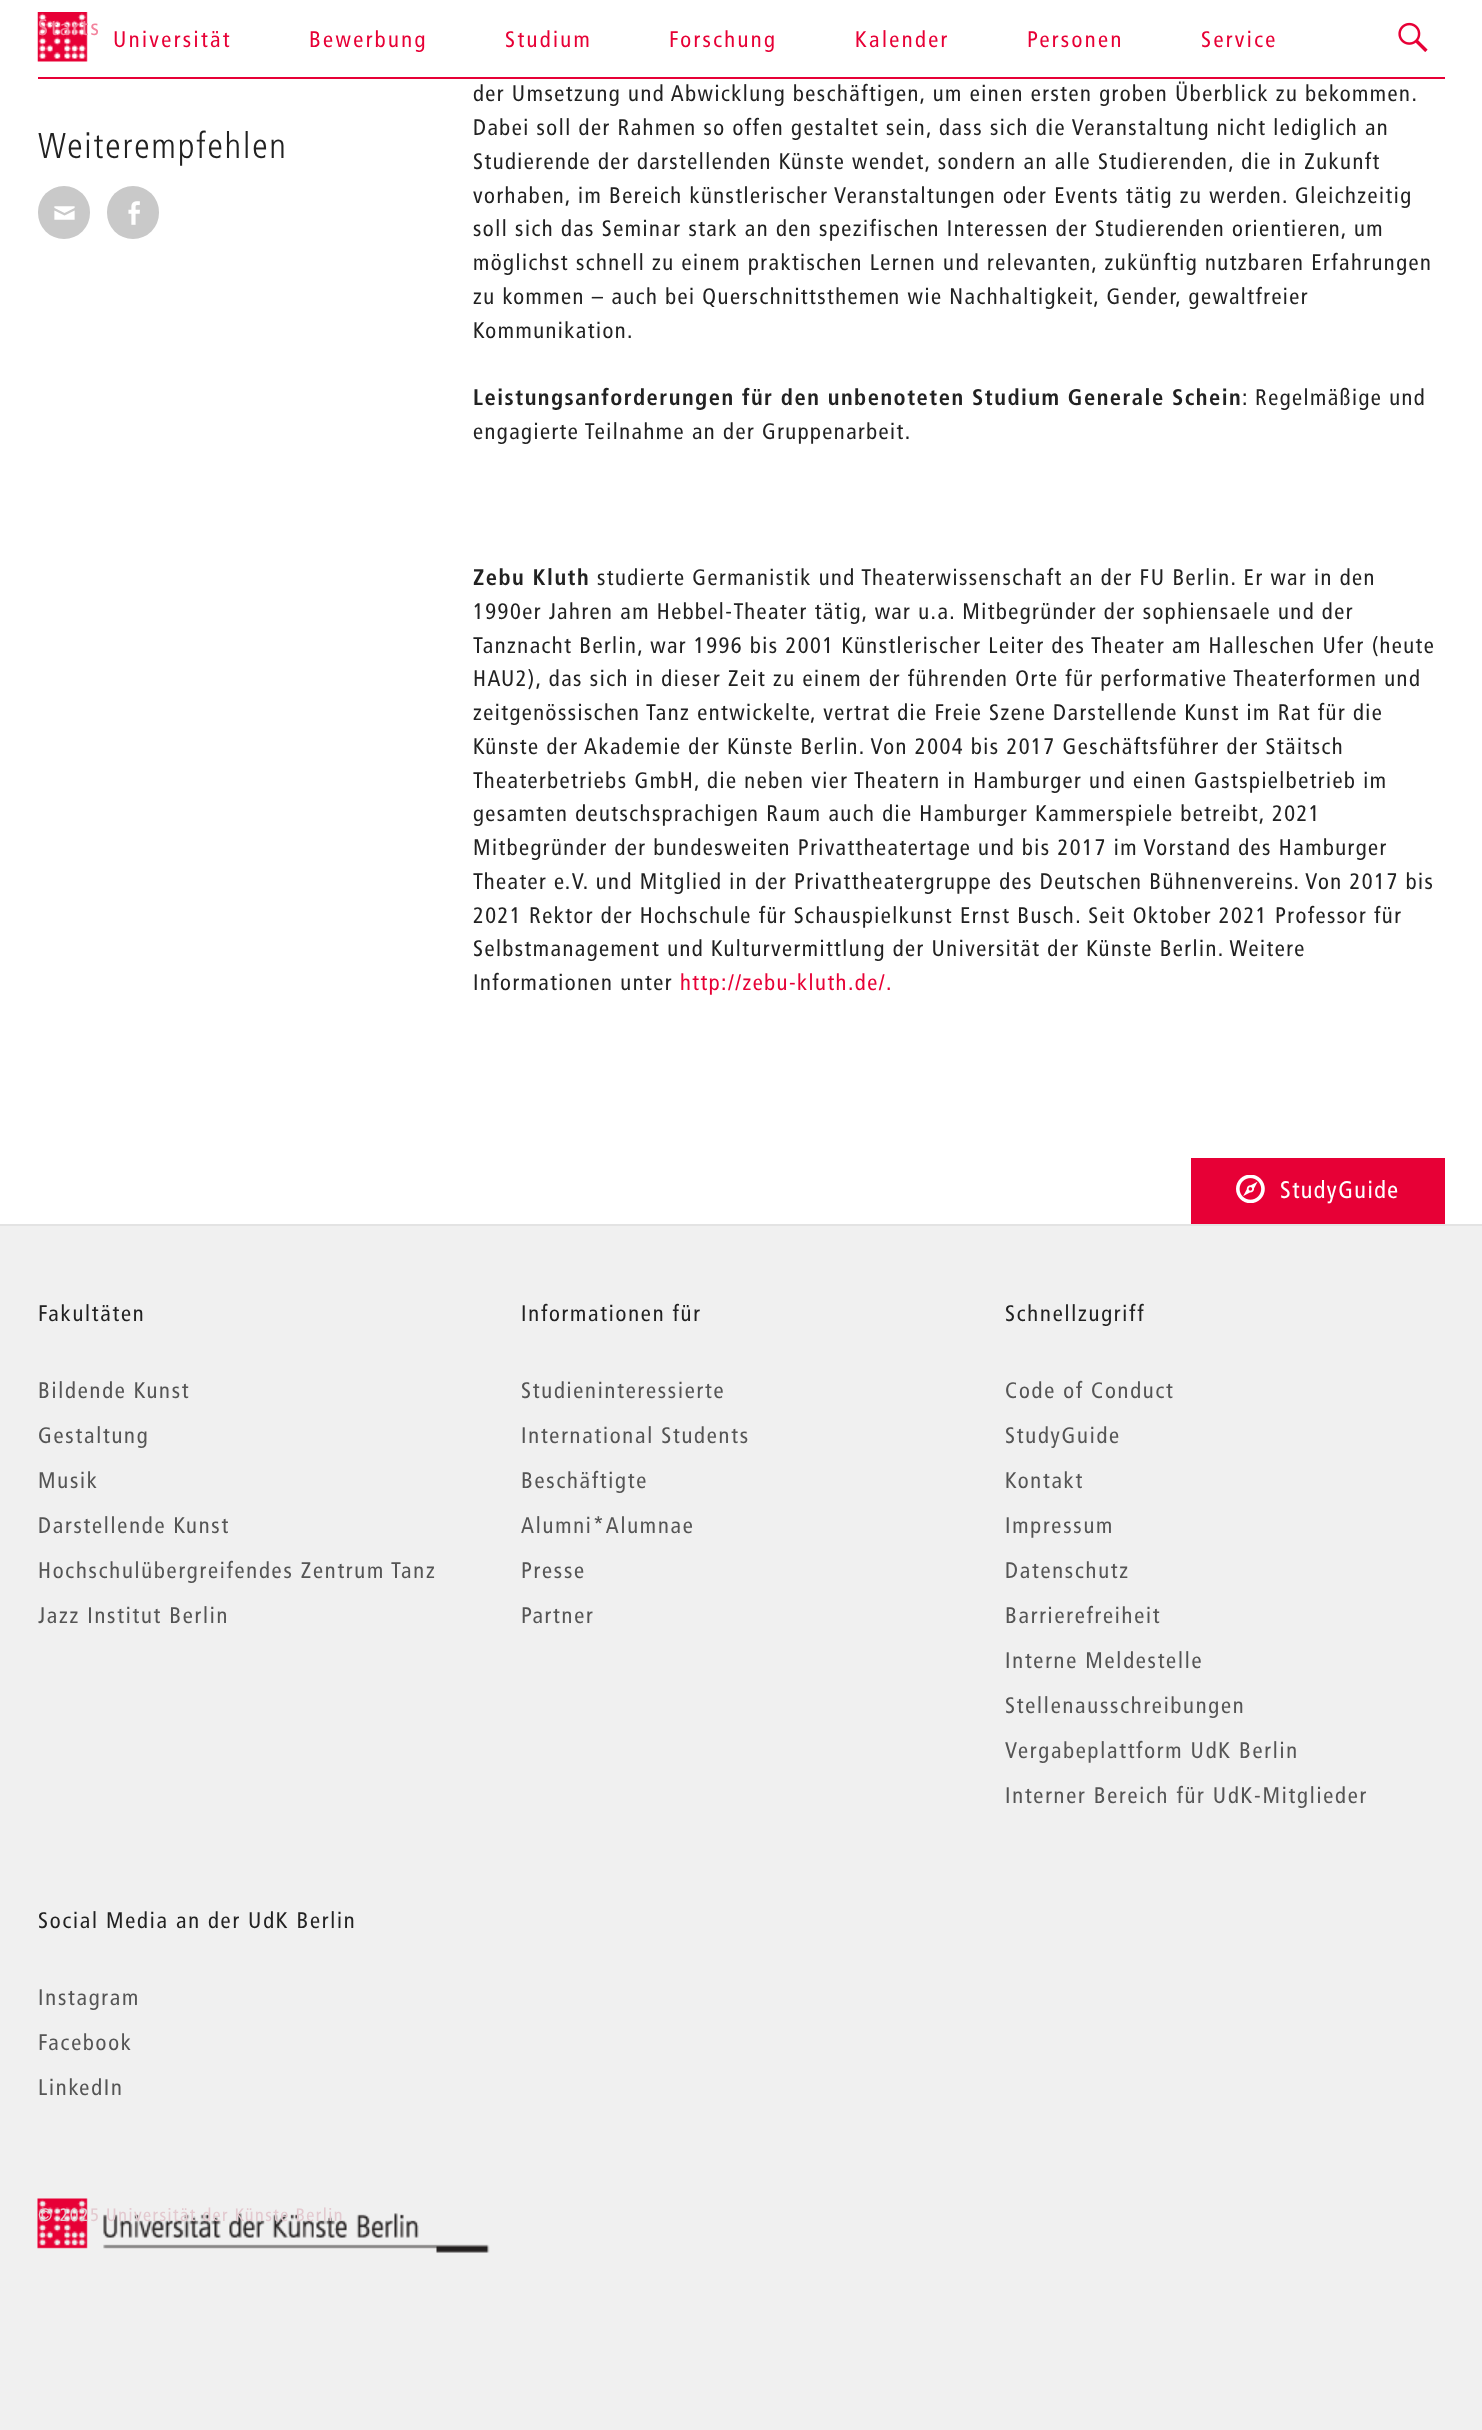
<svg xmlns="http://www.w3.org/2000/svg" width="1482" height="2430">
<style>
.a{font:22.5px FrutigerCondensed;letter-spacing:2.4px;fill:#f3839d}
.b{font:22.5px FrutigerCondensed;letter-spacing:2.4px;fill:#e70036}
.c{font:300 36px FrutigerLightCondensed;letter-spacing:1.8px;fill:#222}
.d{font:22.5px FrutigerCondensed;letter-spacing:1.5px;fill:#222}
.e{font:bold 22.5px FrutigerCondensed;letter-spacing:1.5px;fill:#222}
.f{font:22.5px FrutigerCondensed;letter-spacing:1.5px;fill:#e70036}
.g{font:24px FrutigerCondensed;letter-spacing:1.5px;fill:#fff}
.h{font:22.5px FrutigerCondensed;letter-spacing:1.8px;fill:#222}
.i{font:22.5px FrutigerCondensed;letter-spacing:1.8px;fill:#555}
.j{font:18px FrutigerCondensed;letter-spacing:1.5px;fill:#e3c9cf}
</style>
<rect width="100%" height="100%" fill="#fff"/>
<path fill="#e70036" d="M38 77h1407v2H38z"/>
<image href="1.png" x="37" y="12" width="51" height="50"/>
<image href="2.png" x="1398" y="22" width="30" height="30"/>
<rect fill="#c9c9c9" x="38" y="186" width="52" height="53" rx="26"/>
<image href="3.png" x="54" y="206" width="21" height="14"/>
<rect fill="#c9c9c9" x="107" y="186" width="52" height="53" rx="26"/>
<image href="4.png" x="128" y="201" width="12" height="24"/>
<path fill="#e70036" d="M1191 1158h254v66H1191z"/>
<image href="5.png" x="1236" y="1175" width="29" height="28"/>
<path fill="#f0f0f0" d="M0 1226h1482v1204H0z"/>
<path fill="#e3e3e3" d="M0 1224h1482v2H0z"/>
<image href="6.png" x="37" y="2198" width="453" height="55"/>
<text class="a" x="38" y="35">Starts</text>
<text class="b" x="113" y="47">Universität</text>
<text class="b" x="309" y="47">Bewerbung</text>
<text class="b" x="505" y="47">Studium</text>
<text class="b" x="669" y="47">Forschung</text>
<text class="b" x="855" y="47">Kalender</text>
<text class="b" x="1027" y="47">Personen</text>
<text class="b" x="1201" y="47">Service</text>
<text class="c" x="38" y="158">Weiterempfehlen</text>
<text class="d" x="473" y="101">der Umsetzung und Abwicklung beschäftigen, um einen ersten groben Überblick zu bekommen.</text>
<text class="d" x="473" y="135">Dabei soll der Rahmen so offen gestaltet sein, dass sich die Veranstaltung nicht lediglich an</text>
<text class="d" x="473" y="169">Studierende der darstellenden Künste wendet, sondern an alle Studierenden, die in Zukunft</text>
<text class="d" x="473" y="203">vorhaben, im Bereich künstlerischer Veranstaltungen oder Events tätig zu werden. Gleichzeitig</text>
<text class="d" x="473" y="236">soll sich das Seminar stark an den spezifischen Interessen der Studierenden orientieren, um</text>
<text class="d" x="473" y="270">möglichst schnell zu einem praktischen Lernen und relevanten, zukünftig nutzbaren Erfahrungen</text>
<text class="d" x="473" y="304">zu kommen – auch bei Querschnittsthemen wie Nachhaltigkeit, Gender, gewaltfreier</text>
<text class="d" x="473" y="338">Kommunikation.</text>
<text class="e" x="473" y="405">Leistungsanforderungen für den unbenoteten Studium Generale Schein</text>
<text class="d" x="1242" y="405">: Regelmäßige und</text>
<text class="d" x="473" y="439">engagierte Teilnahme an der Gruppenarbeit.</text>
<text class="e" x="473" y="585">Zebu Kluth</text>
<text class="d" x="597" y="585">studierte Germanistik und Theaterwissenschaft an der FU Berlin. Er war in den</text>
<text class="d" x="473" y="619">1990er Jahren am Hebbel-Theater tätig, war u.a. Mitbegründer der sophiensaele und der</text>
<text class="d" x="473" y="653">Tanznacht Berlin, war 1996 bis 2001 Künstlerischer Leiter des Theater am Halleschen Ufer (heute</text>
<text class="d" x="473" y="686">HAU2), das sich in dieser Zeit zu einem der führenden Orte für performative Theaterformen und</text>
<text class="d" x="473" y="720">zeitgenössischen Tanz entwickelte, vertrat die Freie Szene Darstellende Kunst im Rat für die</text>
<text class="d" x="473" y="754">Künste der Akademie der Künste Berlin. Von 2004 bis 2017 Geschäftsführer der Stäitsch</text>
<text class="d" x="473" y="788">Theaterbetriebs GmbH, die neben vier Theatern in Hamburger und einen Gastspielbetrieb im</text>
<text class="d" x="473" y="821">gesamten deutschsprachigen Raum auch die Hamburger Kammerspiele betreibt, 2021</text>
<text class="d" x="473" y="855">Mitbegründer der bundesweiten Privattheatertage und bis 2017 im Vorstand des Hamburger</text>
<text class="d" x="473" y="889">Theater e.V. und Mitglied in der Privattheatergruppe des Deutschen Bühnenvereins. Von 2017 bis</text>
<text class="d" x="473" y="923">2021 Rektor der Hochschule für Schauspielkunst Ernst Busch. Seit Oktober 2021 Professor für</text>
<text class="d" x="473" y="956">Selbstmanagement und Kulturvermittlung der Universität der Künste Berlin. Weitere</text>
<text class="d" x="473" y="990">Informationen unter</text>
<text class="f" x="680" y="990">http://zebu-kluth.de/.</text>
<text class="g" x="1280" y="1198">StudyGuide</text>
<text class="h" x="38" y="1321">Fakultäten</text>
<text class="i" x="38" y="1398">Bildende Kunst</text>
<text class="i" x="38" y="1443">Gestaltung</text>
<text class="i" x="38" y="1488">Musik</text>
<text class="i" x="38" y="1533">Darstellende Kunst</text>
<text class="i" x="38" y="1578">Hochschulübergreifendes Zentrum Tanz</text>
<text class="i" x="38" y="1623">Jazz Institut Berlin</text>
<text class="h" x="521" y="1321">Informationen für</text>
<text class="i" x="521" y="1398">Studieninteressierte</text>
<text class="i" x="521" y="1443">International Students</text>
<text class="i" x="521" y="1488">Beschäftigte</text>
<text class="i" x="521" y="1533">Alumni*Alumnae</text>
<text class="i" x="521" y="1578">Presse</text>
<text class="i" x="521" y="1623">Partner</text>
<text class="h" x="1005" y="1321">Schnellzugriff</text>
<text class="i" x="1005" y="1398">Code of Conduct</text>
<text class="i" x="1005" y="1443">StudyGuide</text>
<text class="i" x="1005" y="1488">Kontakt</text>
<text class="i" x="1005" y="1533">Impressum</text>
<text class="i" x="1005" y="1578">Datenschutz</text>
<text class="i" x="1005" y="1623">Barrierefreiheit</text>
<text class="i" x="1005" y="1668">Interne Meldestelle</text>
<text class="i" x="1005" y="1713">Stellenausschreibungen</text>
<text class="i" x="1005" y="1758">Vergabeplattform UdK Berlin</text>
<text class="i" x="1005" y="1803">Interner Bereich für UdK-Mitglieder</text>
<text class="h" x="38" y="1928">Social Media an der UdK Berlin</text>
<text class="i" x="38" y="2005">Instagram</text>
<text class="i" x="38" y="2050">Facebook</text>
<text class="i" x="38" y="2095">LinkedIn</text>
<text class="j" x="38" y="2221">© 2025 Universität der Künste Berlin</text>
</svg>
